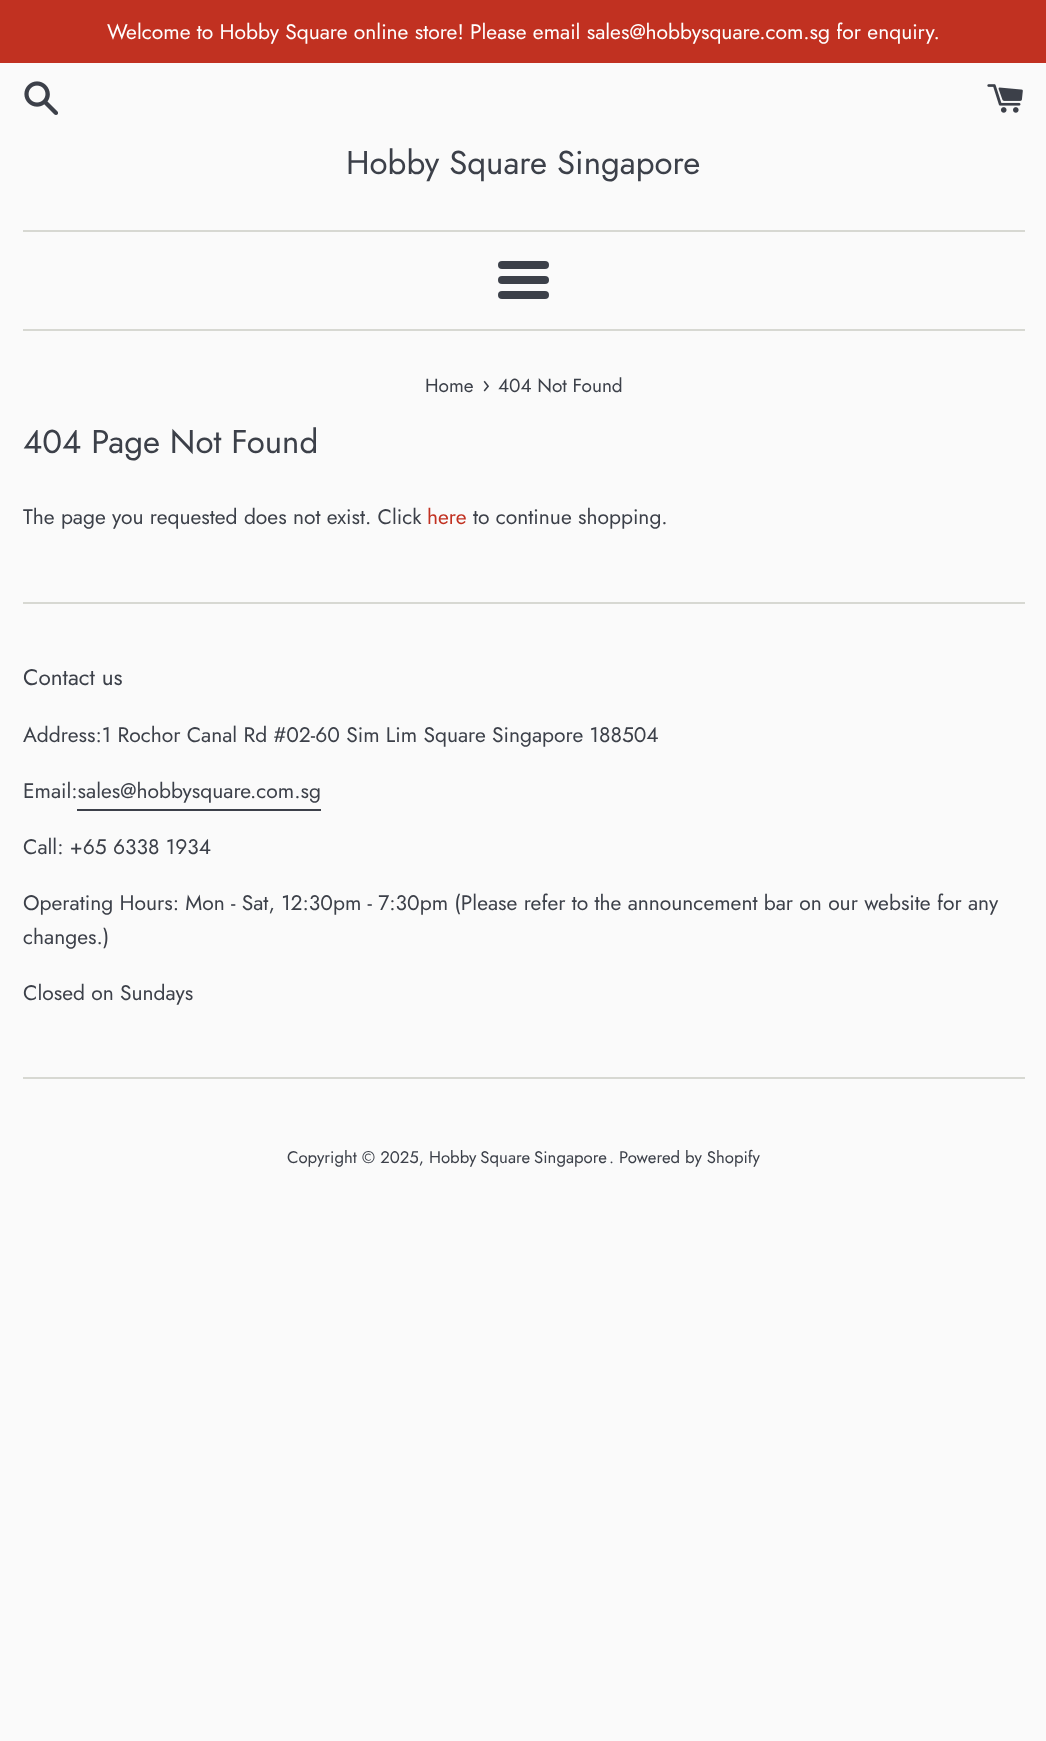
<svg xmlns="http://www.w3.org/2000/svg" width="1046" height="1741">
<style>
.a{font:21px Jost;fill:#fff}
.b{font:33px Jost;fill:#3c4049}
.c{font:19px Jost;fill:#3c4049}
.d{font:23px Jost;fill:#3c4049}
.e{font:21px Jost;fill:#3c4049}
.f{font:21px Jost;fill:#c13121}
.g{font:22.5px Jost;fill:#3c4049}
.h{font:16.75px Jost;fill:#3c4049}
</style>
<rect width="100%" height="100%" fill="#fafafa"/>
<path fill="#c13121" d="M0 0h1046v63H0z"/>
<image href="1.png" x="24" y="81" width="34" height="34"/>
<image href="2.png" x="987" y="84" width="36" height="29"/>
<path fill="#d7d8d2" d="M23 230h1002v2H23z"/>
<rect fill="#3c4049" x="498" y="261" width="51" height="8" rx="4"/>
<rect fill="#3c4049" x="498" y="276" width="51" height="8" rx="4"/>
<rect fill="#3c4049" x="498" y="291" width="51" height="8" rx="4"/>
<path fill="#d7d8d2" d="M23 329h1002v2H23z"/>
<path fill="#d7d8d2" d="M23 602h1002v2H23z"/>
<path fill="#3c4049" d="M77 809h244v2H77z"/>
<path fill="#d7d8d2" d="M23 1077h1002v2H23z"/>
<text class="a" x="107" y="39">Welcome to Hobby Square online store! Please email sales@hobbysquare.com.sg for enquiry.</text>
<text class="b" x="346" y="174">Hobby Square Singapore</text>
<text class="c" x="425" y="392">Home</text>
<text class="d" x="482" y="392">›</text>
<text class="c" x="498" y="392">404 Not Found</text>
<text class="b" x="23" y="453">404 Page Not Found</text>
<text class="e" x="23" y="524">The page you requested does not exist. Click</text>
<text class="f" x="427" y="524">here</text>
<text class="e" x="473" y="524">to continue shopping.</text>
<text class="g" x="23" y="685">Contact us</text>
<text class="e" x="23" y="742">Address:1 Rochor Canal Rd #02-60 Sim Lim Square Singapore 188504</text>
<text class="e" x="23" y="798">Email:sales@hobbysquare.com.sg</text>
<text class="e" x="23" y="854">Call: +65 6338 1934</text>
<text class="e" x="23" y="910">Operating Hours: Mon - Sat, 12:30pm - 7:30pm (Please refer to the announcement bar on our website for any</text>
<text class="e" x="23" y="944">changes.)</text>
<text class="e" x="23" y="1000">Closed on Sundays</text>
<text class="h" x="287" y="1163">Copyright © 2025,</text>
<text class="h" x="429" y="1163" word-spacing="-1">Hobby Square Singapore</text>
<text class="h" x="609" y="1163">. Powered by Shopify</text>
</svg>
